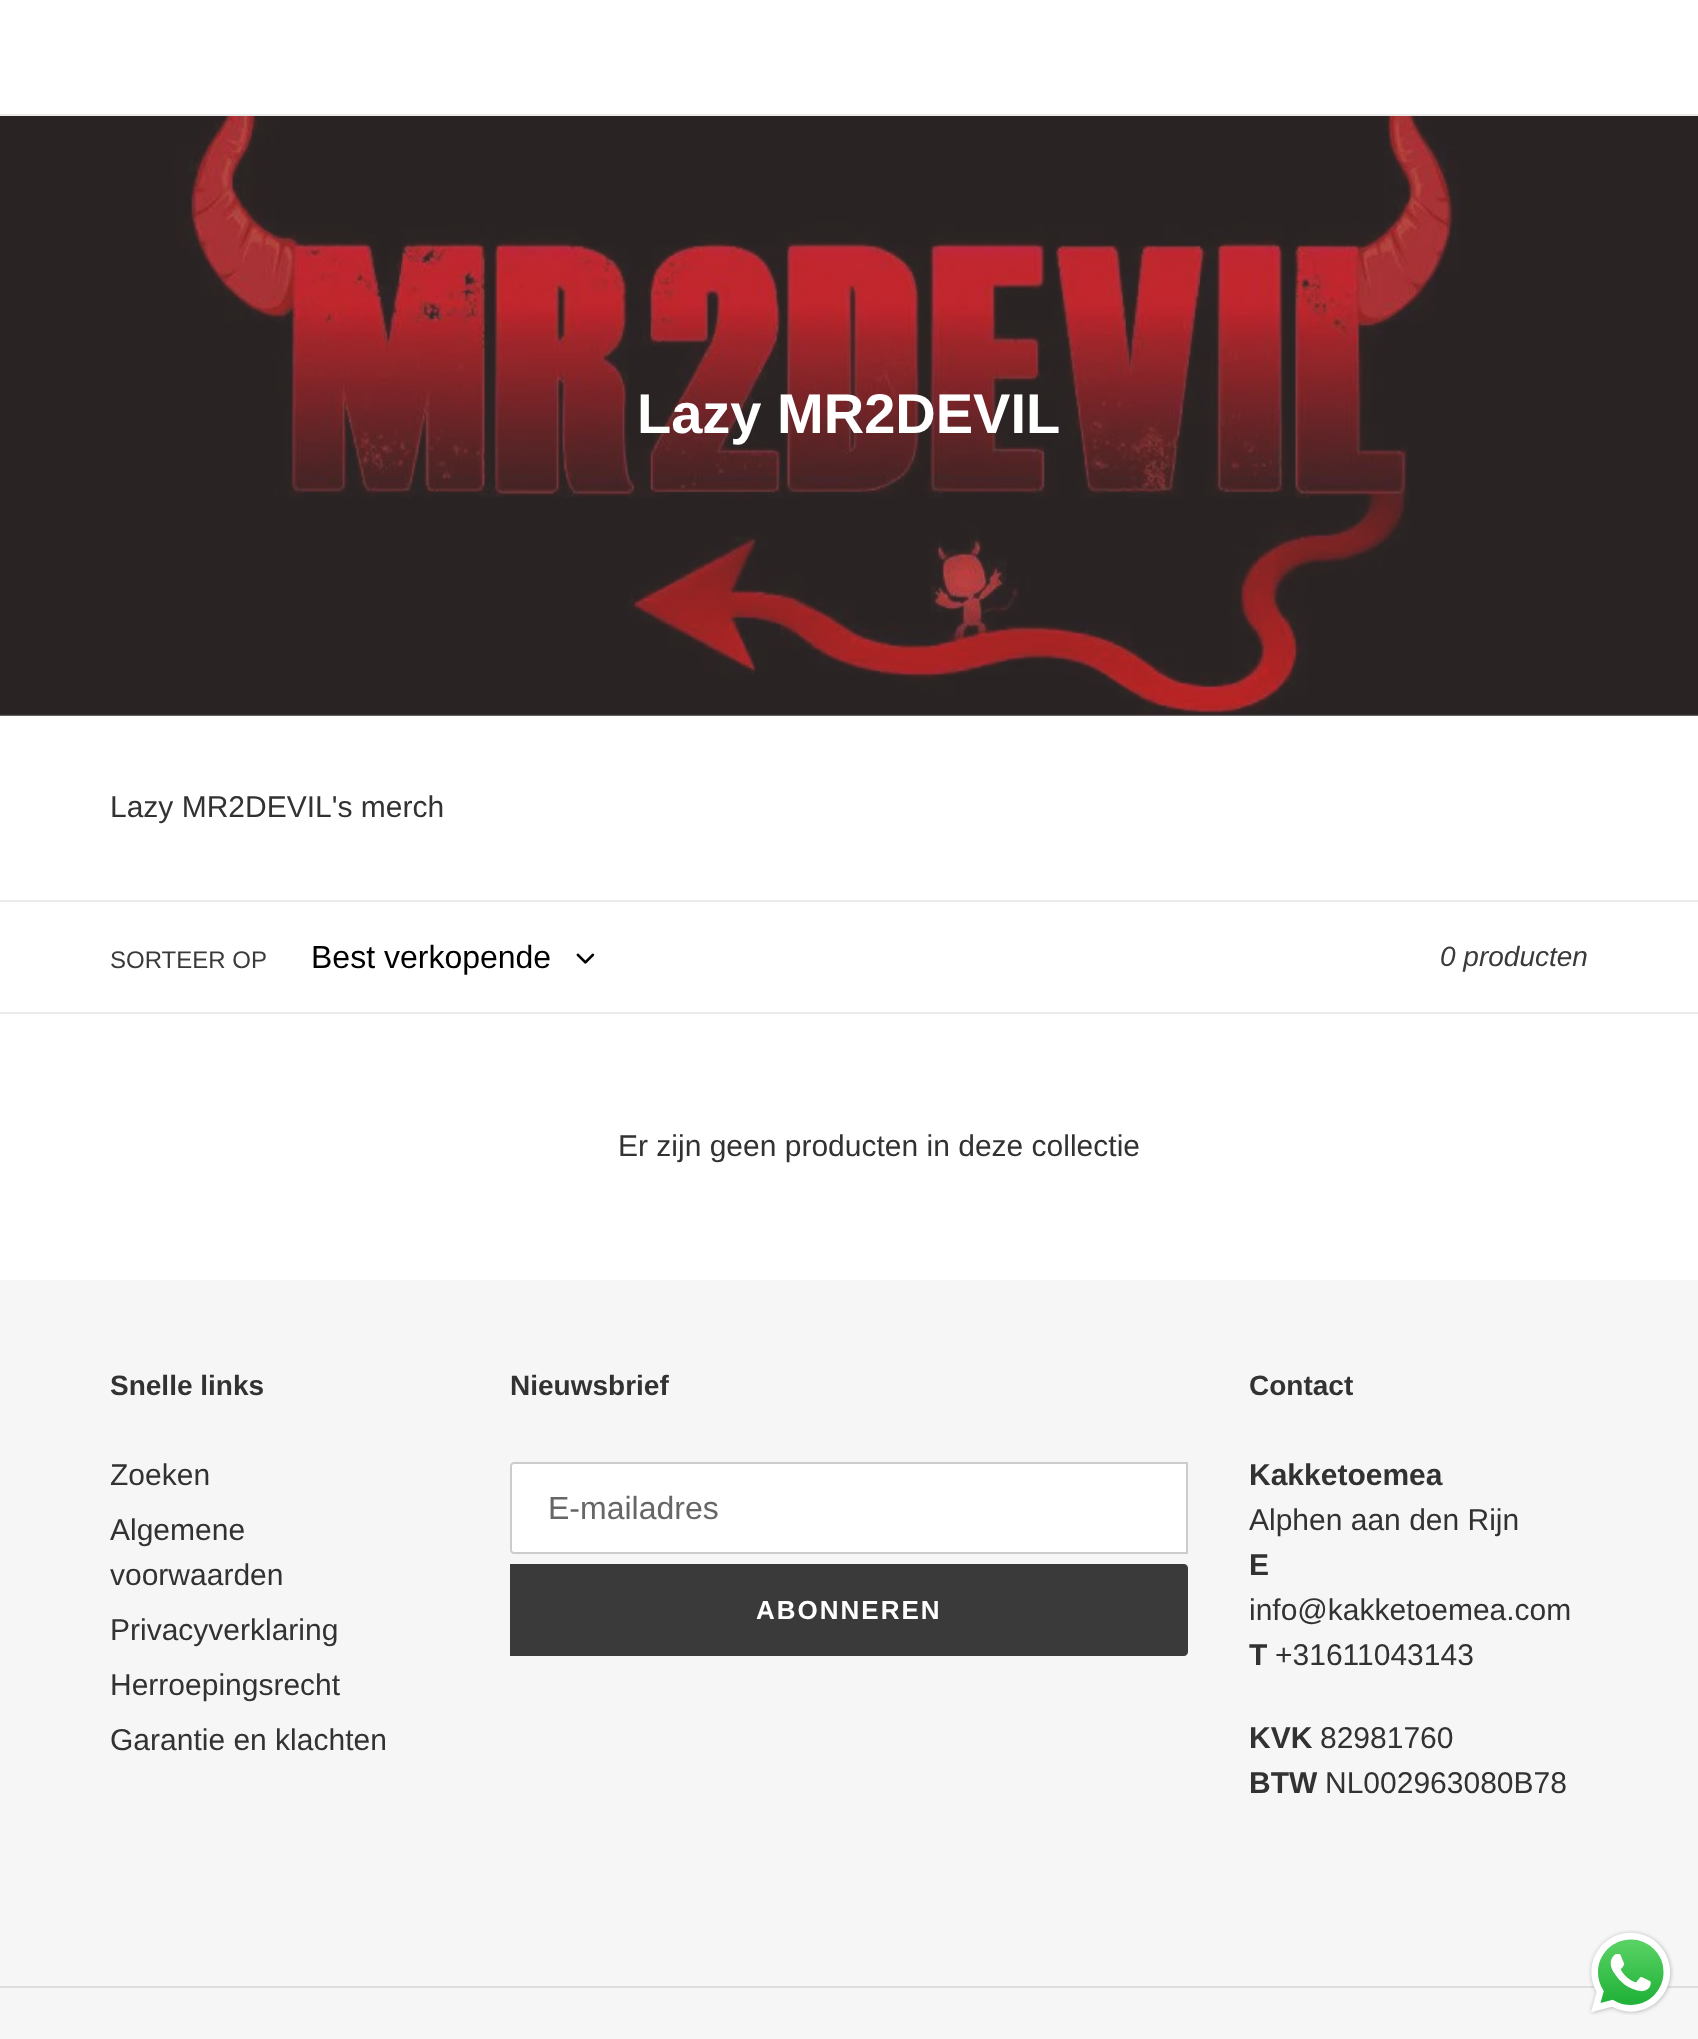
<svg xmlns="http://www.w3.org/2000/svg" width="1698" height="2039">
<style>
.a{font:bold 56px Liberation Sans;fill:#fff}
.b{font:30px Liberation Sans;fill:#333232}
.c{font:24px Liberation Sans;fill:#3a3a3a}
.d{font:32px Liberation Sans;fill:#000}
.e{font:italic 28px Liberation Sans;fill:#3a3a3a}
.f{font:bold 28px Liberation Sans;fill:#333232}
.g{font:32px Liberation Sans;fill:#666}
.h{font:bold 26px Liberation Sans;letter-spacing:2px;fill:#fff}
.i{font:bold 30px Liberation Sans;fill:#333232}
</style>
<rect width="100%" height="100%" fill="#fff"/>
<path fill="#ebebeb" d="M0 114h1698v2H0z"/>
<image href="1.png" x="0" y="116" width="1698" height="600"/>
<path fill="#ebebeb" d="M0 900h1698v2H0z"/>
<path fill="#ebebeb" d="M0 1012h1698v2H0z"/>
<image href="2.png" x="576" y="953" width="19" height="11"/>
<path fill="#f6f6f6" d="M0 1280h1698v759H0z"/>
<path fill="#fff" stroke="#ccc" stroke-width="2" d="M514 1463h673v90h-673c-1.5 0-3-1.5-3-3v-84c0-1.5 1.5-3 3-3z"/>
<path fill="#3a3a3a" d="M510 1564h674c2 0 4 2 4 4v84c0 2-2 4-4 4h-674z"/>
<path fill="#ddd" d="M0 1986h1698v2H0z"/>
<image href="3.png" x="1588" y="1930" width="86" height="85"/>
<text class="a" x="637" y="433">Lazy MR2DEVIL</text>
<text class="b" x="110" y="817">Lazy MR2DEVIL's merch</text>
<text class="c" x="110" y="968">SORTEER OP</text>
<text class="d" x="311" y="968">Best verkopende</text>
<text class="e" x="1440" y="966">0 producten</text>
<text class="b" x="618" y="1156">Er zijn geen producten in deze collectie</text>
<text class="f" x="110" y="1395">Snelle links</text>
<text class="b" x="110" y="1485">Zoeken</text>
<text class="b" x="110" y="1540">Algemene</text>
<text class="b" x="110" y="1585">voorwaarden</text>
<text class="b" x="110" y="1640">Privacyverklaring</text>
<text class="b" x="110" y="1695">Herroepingsrecht</text>
<text class="b" x="110" y="1750">Garantie en klachten</text>
<text class="f" x="510" y="1395">Nieuwsbrief</text>
<text class="g" x="548" y="1519">E-mailadres</text>
<text class="h" x="756" y="1619">ABONNEREN</text>
<text class="f" x="1249" y="1395">Contact</text>
<text class="i" x="1249" y="1485">Kakketoemea</text>
<text class="b" x="1249" y="1530">Alphen aan den Rijn</text>
<text class="i" x="1249" y="1575">E</text>
<text class="b" x="1249" y="1620">info@kakketoemea.com</text>
<text class="i" x="1249" y="1665">T</text>
<text class="b" x="1275" y="1665">+31611043143</text>
<text class="i" x="1249" y="1748">KVK</text>
<text class="b" x="1320" y="1748">82981760</text>
<text class="i" x="1249" y="1793">BTW</text>
<text class="b" x="1325" y="1793">NL002963080B78</text>
</svg>
